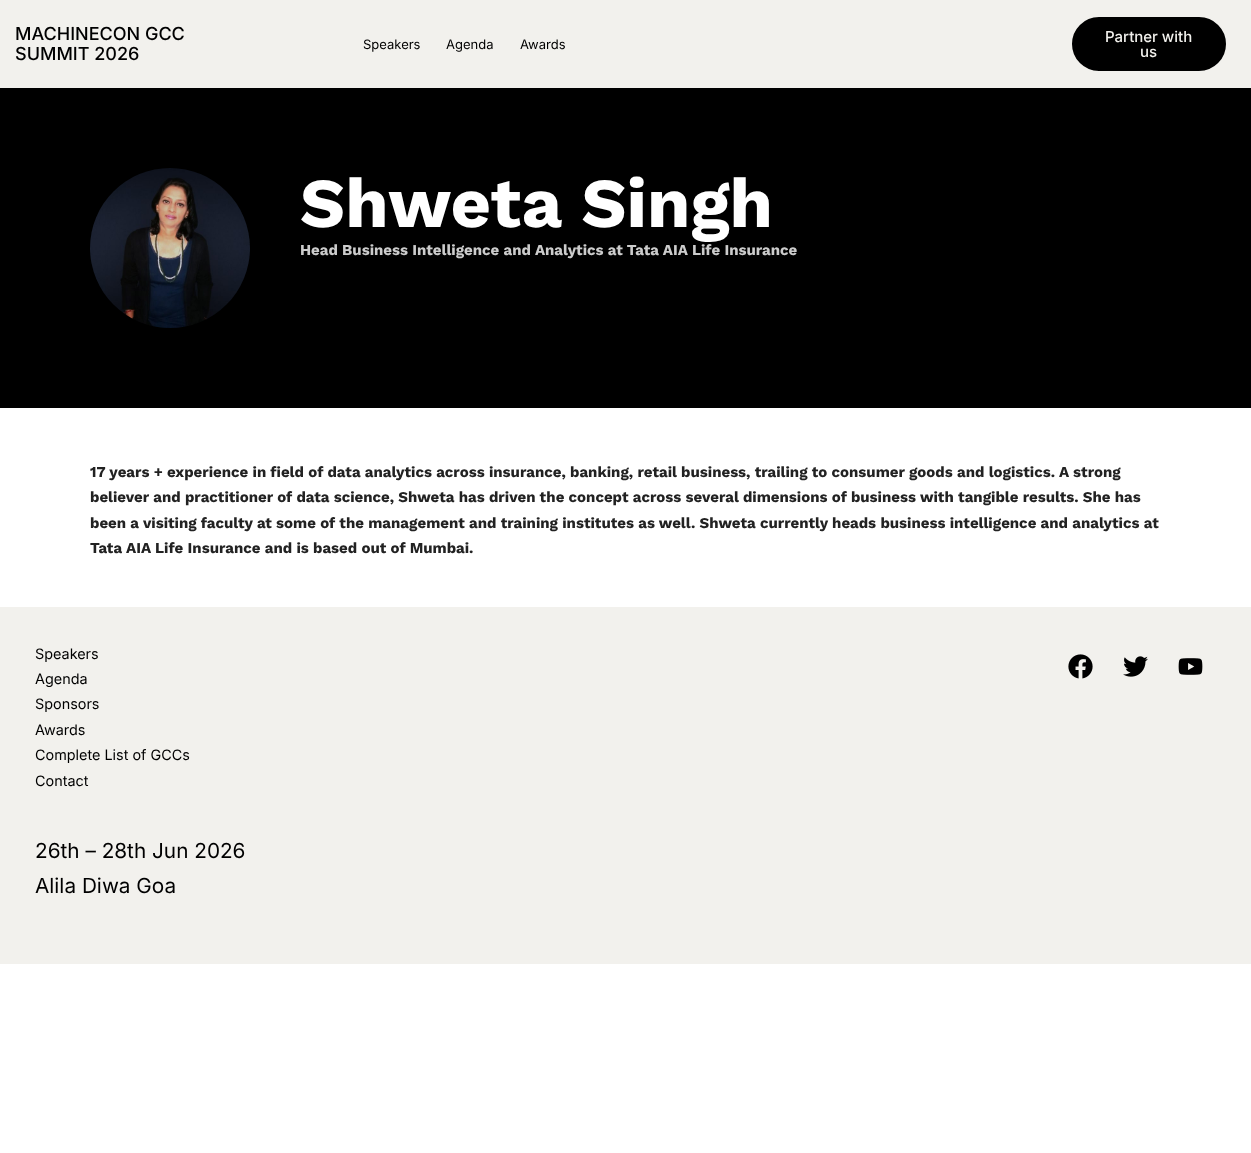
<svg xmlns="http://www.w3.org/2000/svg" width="1251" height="1153">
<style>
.a{font:500 18px Inter;fill:#000}
.b{font:13px Inter;fill:#000}
.c{font:500 15px Inter;fill:#f2f1ed}
.d{font:bold 70px Work Sans;fill:#fff}
.e{font:bold 15px Work Sans;fill:#ccc}
.f{font:bold 15px Work Sans;fill:#222}
.g{font:14.4px Inter;fill:#000}
.h{font:20.75px Inter;fill:#000}
</style>
<rect width="100%" height="100%" fill="#fff"/>
<path fill="#f2f1ed" d="M0 0h1251v88H0z"/>
<rect fill="#000" stroke="#f2f1ed" stroke-width="2" x="1071" y="16" width="156" height="56" rx="28"/>
<path fill="#000" d="M0 88h1251v320H0z"/>
<image href="1.png" x="90" y="168" width="160" height="160"/>
<path fill="#f2f1ed" d="M0 607h1251v357H0z"/>
<image href="2.png" x="1068" y="654" width="25" height="25"/>
<image href="3.png" x="1123" y="656" width="25" height="21"/>
<image href="4.png" x="1178" y="658" width="25" height="17"/>
<text class="a" x="15" y="40">MACHINECON GCC</text>
<text class="a" x="15" y="60">SUMMIT 2026</text>
<text class="b" x="363" y="49">Speakers</text>
<text class="b" x="446" y="49">Agenda</text>
<text class="b" x="520" y="49">Awards</text>
<text class="c" x="1105" y="42">Partner with</text>
<text class="c" x="1140" y="57">us</text>
<text class="d" x="300" y="227">Shweta Singh</text>
<text class="e" x="300" y="255">Head Business Intelligence and Analytics at Tata AIA Life Insurance</text>
<text class="f" x="90" y="477">17 years + experience in field of data analytics across insurance, banking, retail business, trailing to consumer goods and logistics. A strong</text>
<text class="f" x="90" y="502">believer and practitioner of data science, Shweta has driven the concept across several dimensions of business with tangible results. She has</text>
<text class="f" x="90" y="528">been a visiting faculty at some of the management and training institutes as well. Shweta currently heads business intelligence and analytics at</text>
<text class="f" x="90" y="553">Tata AIA Life Insurance and is based out of Mumbai.</text>
<text class="g" x="35" y="659">Speakers</text>
<text class="g" x="35" y="684">Agenda</text>
<text class="g" x="35" y="709">Sponsors</text>
<text class="g" x="35" y="735">Awards</text>
<text class="g" x="35" y="760">Complete List of GCCs</text>
<text class="g" x="35" y="786">Contact</text>
<text class="h" x="35" y="858">26th – 28th Jun 2026</text>
<text class="h" x="35" y="893">Alila Diwa Goa</text>
</svg>
